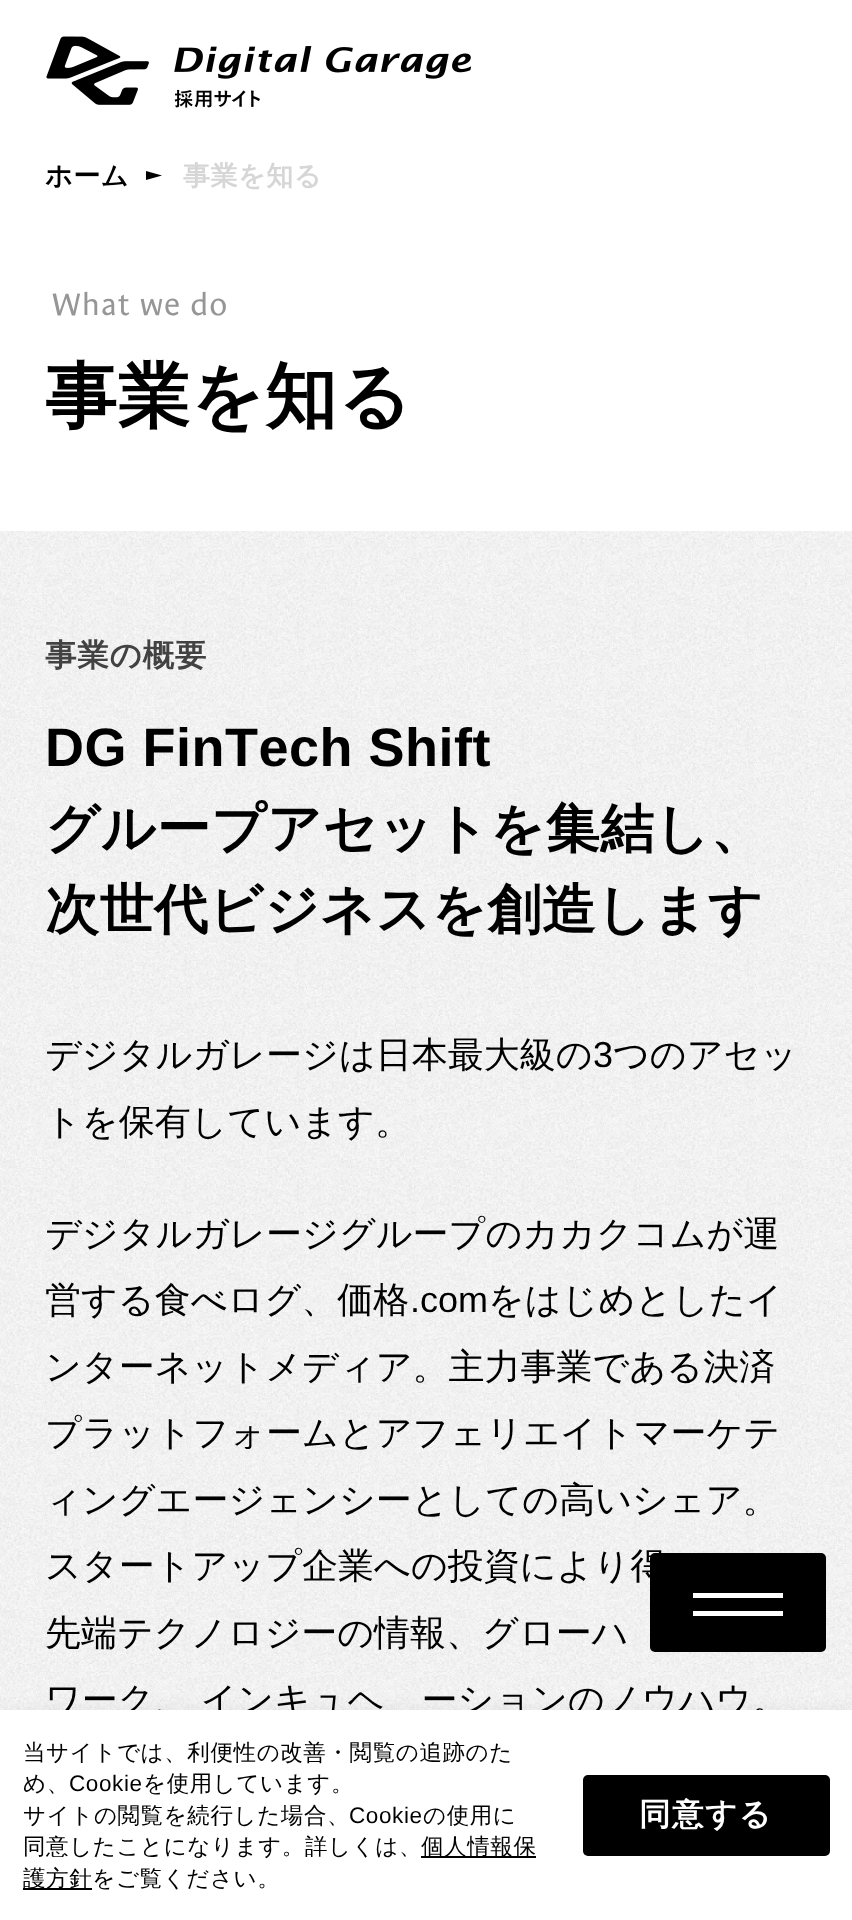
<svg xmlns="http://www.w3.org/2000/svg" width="852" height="1920">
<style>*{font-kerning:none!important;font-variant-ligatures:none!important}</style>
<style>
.a{font:bold 27px WenQuanYi Zen Hei;letter-spacing:0.5px;fill:#000}
.b{font:bold 27px WenQuanYi Zen Hei;letter-spacing:0.5px;fill:#d6d6d6}
.c{font:31.5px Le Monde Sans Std;letter-spacing:1.25px;fill:#969696}
.d{font:bold 72px WenQuanYi Zen Hei;letter-spacing:0.75px;fill:#000}
.e{font:bold 31.5px WenQuanYi Zen Hei;letter-spacing:0.75px;fill:#424242}
.f{font:bold 54px Liberation Sans;letter-spacing:0.5px;fill:#000}
.g{font:bold 54px WenQuanYi Zen Hei;letter-spacing:0.5px;fill:#000}
.h{font:500 36px WenQuanYi Zen Hei;fill:#000}
.i{font:36px Liberation Sans;fill:#000}
.j{font:500 22.5px WenQuanYi Zen Hei;letter-spacing:0.6px;fill:#000}
.k{font:22.5px Liberation Sans;letter-spacing:0.6px;fill:#000}
.l{font:bold 31.5px WenQuanYi Zen Hei;letter-spacing:1.5px;fill:#fff}
</style>
<rect width="100%" height="100%" fill="#fff"/>
<image href="1.png" x="46" y="36" width="426" height="72"/>
<image href="2.png" x="0" y="531" width="852" height="1179"/>
<rect fill="#000" x="650" y="1553" width="176" height="99" rx="5"/>
<path fill="#fff" d="M693 1593h90v5H693z"/>
<path fill="#fff" d="M693 1611h90v5H693z"/>
<path fill="#000" d="M146 180v-9l16 4.5z"/>
<path fill="#00000033" filter="blur(13.5px)" d="M0 1724h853v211H0z"/>
<text class="a" x="45" y="185">ホーム</text>
<text class="b" x="183" y="185">事業を知る</text>
<text class="c" x="52" y="315">What we do</text>
<text class="d" x="45" y="421">事業を知る</text>
<text class="e" x="45" y="666">事業の概要</text>
<text class="f" x="45" y="766">DG FinTech Shift</text>
<text class="g" x="45" y="847">グループアセットを集結し、</text>
<text class="g" x="45" y="928">次世代ビジネスを創造します</text>
<text class="h" x="45" y="1067">デジタルガレージは日本最大級の</text>
<text class="i" x="593" y="1067">3</text>
<text class="h" x="613" y="1067">つのアセッ</text>
<text class="h" x="45" y="1134">トを保有しています。</text>
<text class="h" x="45" y="1246">デジタルガレージグループのカカクコムが運</text>
<text class="h" x="45" y="1312">営する食べログ、価格</text>
<text class="i" x="410" y="1312">.com</text>
<text class="h" x="488" y="1312">をはじめとしたイ</text>
<text class="h" x="45" y="1379">ンターネットメディア。主力事業である決済</text>
<text class="h" x="45" y="1445">プラットフォームとアフェリエイトマーケテ</text>
<text class="h" x="45" y="1512">ィングエージェンシーとしての高いシェア。</text>
<text class="h" x="45" y="1578">スタートアップ企業への投資により得</text>
<text class="h" x="45" y="1645">先端テクノロジーの情報、グローバル</text>
<text class="h" x="45" y="1712" word-spacing="-1">ワーク、 インキュベーションのノウハウ。</text>
<path fill="#fff" d="M0 1710h852v210H0z"/>
<text class="j" x="23" y="1760">当サイトでは、利便性の改善・閲覧の追跡のた</text>
<text class="j" x="23" y="1791">め、</text>
<text class="k" x="69" y="1791">Cookie</text>
<text class="j" x="143" y="1791">を使用しています。</text>
<text class="j" x="23" y="1823">サイトの閲覧を続行した場合、</text>
<text class="k" x="349" y="1823">Cookie</text>
<text class="j" x="423" y="1823">の使用に</text>
<text class="j" x="23" y="1854">同意したことになります。詳しくは、</text>
<path fill="#000" d="M421 1856h115v2H421z"/>
<text class="j" x="421" y="1854">個人情報保</text>
<path fill="#000" d="M23 1888h69v2H23z"/>
<text class="j" x="23" y="1886">護方針をご覧ください。</text>
<rect fill="#000" x="583" y="1775" width="247" height="81" rx="5"/>
<text class="l" x="639" y="1825">同意する</text>
</svg>
